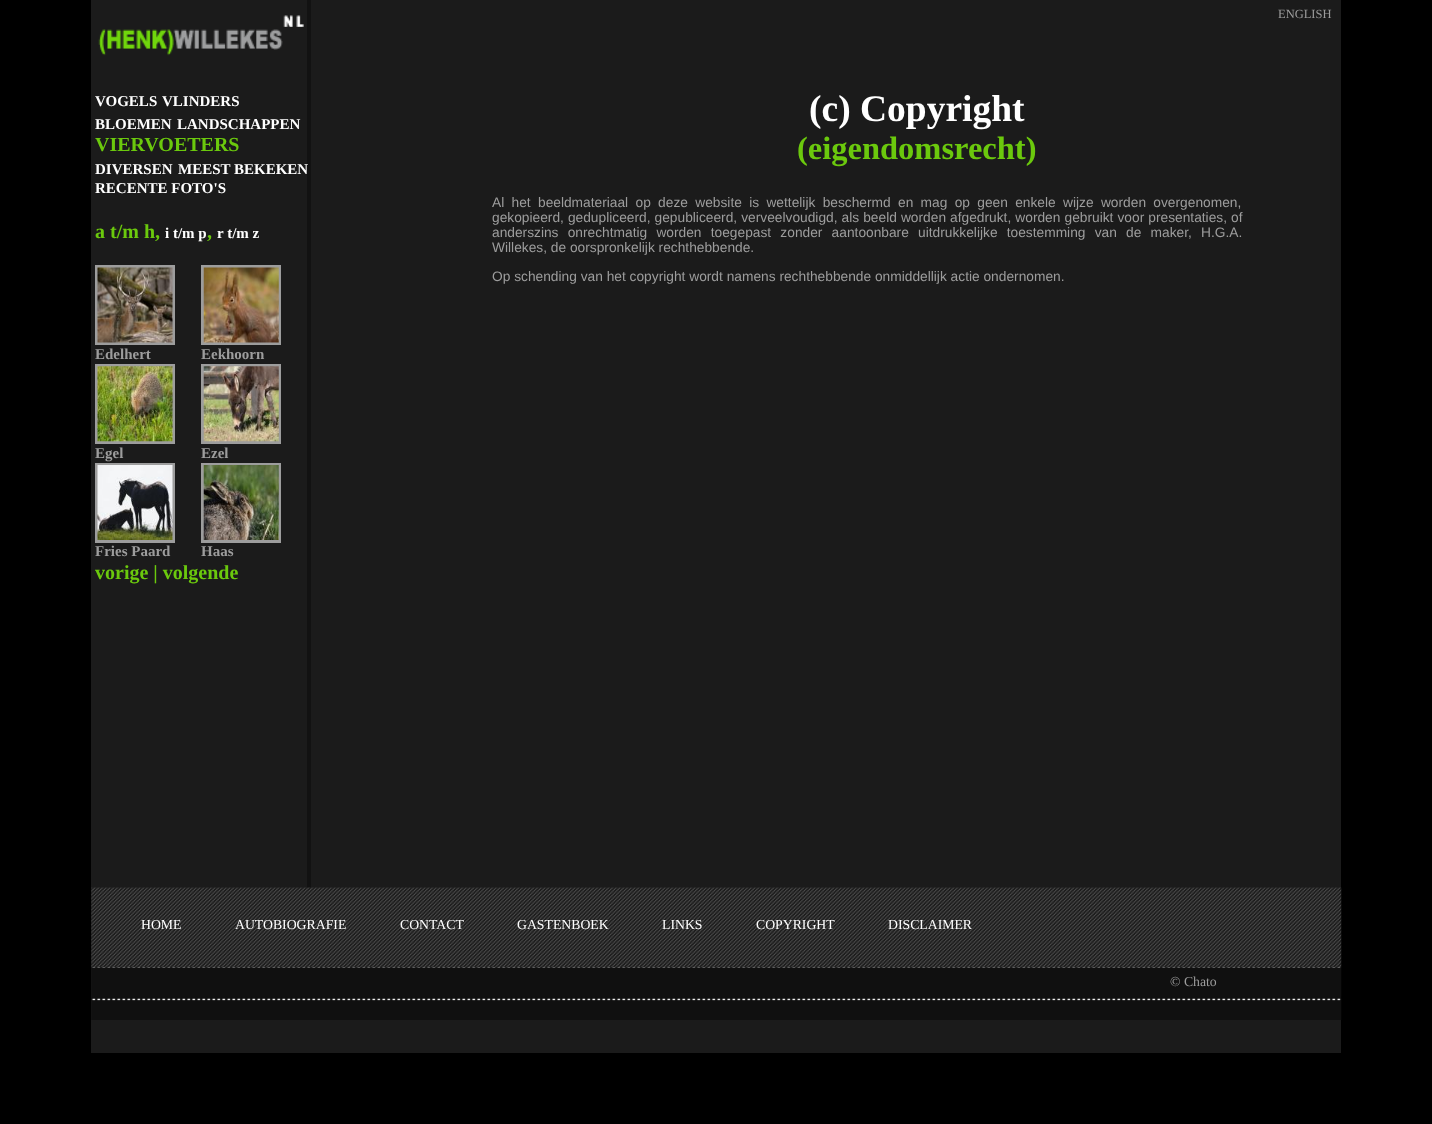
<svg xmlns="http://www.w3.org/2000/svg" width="1432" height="1124">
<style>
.a{font:12.5px Liberation Serif;fill:#9d9d9d}
.b{font:bold 15px Liberation Serif;fill:#fff}
.c{font:bold 20px Liberation Serif;fill:#6bc90d}
.d{font:bold 15px Liberation Serif;fill:#9d9d9d}
.e{font:bold 37.5px Liberation Serif;fill:#fff}
.f{font:bold 32.5px Liberation Serif;fill:#6bc90d}
.g{font:13.75px Liberation Sans;fill:#9d9d9d}
.h{font:13.75px Liberation Serif;fill:#fff}
.i{font:13.75px Liberation Serif;fill:#9d9d9d}
</style>
<rect width="100%" height="100%" fill="#000"/>
<path fill="#1b1b1b" d="M91 0h1250v1053H91z"/>
<path fill="#121212" d="M307 0h4v888H307z"/>
<image href="1.png" x="98" y="15" width="206" height="41"/>
<path fill="none" stroke="#9d9d9d" stroke-width="3" d="M96.5 266.5h77v77H96.5z"/>
<image href="2.png" x="97" y="267" width="76" height="76"/>
<path fill="none" stroke="#9d9d9d" stroke-width="3" d="M202.5 266.5h77v77H202.5z"/>
<image href="3.png" x="203" y="267" width="76" height="76"/>
<path fill="none" stroke="#9d9d9d" stroke-width="3" d="M96.5 365.5h77v77H96.5z"/>
<image href="4.png" x="97" y="366" width="76" height="76"/>
<path fill="none" stroke="#9d9d9d" stroke-width="3" d="M202.5 365.5h77v77H202.5z"/>
<image href="5.png" x="203" y="366" width="76" height="76"/>
<path fill="none" stroke="#9d9d9d" stroke-width="3" d="M96.5 464.5h77v77H96.5z"/>
<image href="6.png" x="97" y="465" width="76" height="75"/>
<path fill="none" stroke="#9d9d9d" stroke-width="3" d="M202.5 464.5h77v77H202.5z"/>
<image href="7.png" x="203" y="465" width="76" height="75"/>
<image href="8.png" x="91" y="887" width="1251" height="81"/>
<image href="9.png" x="91" y="967" width="1251" height="53"/>
<text class="a" x="1278" y="18">ENGLISH</text>
<text class="b" x="95" y="106">VOGELS</text>
<text class="b" x="162" y="106">VLINDERS</text>
<text class="b" x="95" y="129">BLOEMEN</text>
<text class="b" x="177" y="129">LANDSCHAPPEN</text>
<text class="c" x="95" y="151">VIERVOETERS</text>
<text class="b" x="95" y="174">DIVERSEN</text>
<text class="b" x="178" y="174">MEEST BEKEKEN</text>
<text class="b" x="95" y="193">RECENTE FOTO'S</text>
<text class="c" x="95" y="238">a t/m h,</text>
<text class="b" x="165" y="238">i t/m p</text>
<text class="c" x="207" y="238">,</text>
<text class="b" x="217" y="238">r t/m z</text>
<text class="d" x="95" y="359">Edelhert</text>
<text class="d" x="201" y="359">Eekhoorn</text>
<text class="d" x="95" y="458">Egel</text>
<text class="d" x="201" y="458">Ezel</text>
<text class="d" x="95" y="556">Fries Paard</text>
<text class="d" x="201" y="556">Haas</text>
<text class="c" x="95" y="579">vorige | volgende</text>
<text class="e" x="809" y="121">(c) Copyright</text>
<text class="f" x="797" y="159">(eigendomsrecht)</text>
<text class="g" x="492" y="207" word-spacing="3.5">Al het beeldmateriaal op deze website is wettelijk beschermd en mag op geen enkele wijze worden overgenomen,</text>
<text class="g" x="492" y="222" word-spacing="0.25">gekopieerd, gedupliceerd, gepubliceerd, verveelvoudigd, als beeld worden afgedrukt, worden gebruikt voor presentaties, of</text>
<text class="g" x="492" y="237" word-spacing="5.4">anderszins onrechtmatig worden toegepast zonder aantoonbare uitdrukkelijke toestemming van de maker, H.G.A.</text>
<text class="g" x="492" y="252">Willekes, de oorspronkelijk rechthebbende.</text>
<text class="g" x="492" y="281">Op schending van het copyright wordt namens rechthebbende onmiddellijk actie ondernomen.</text>
<text class="h" x="141" y="929">HOME</text>
<text class="h" x="235" y="929">AUTOBIOGRAFIE</text>
<text class="h" x="400" y="929">CONTACT</text>
<text class="h" x="517" y="929">GASTENBOEK</text>
<text class="h" x="662" y="929">LINKS</text>
<text class="h" x="756" y="929">COPYRIGHT</text>
<text class="h" x="888" y="929">DISCLAIMER</text>
<text class="i" x="1170" y="986">© Chato</text>
</svg>
